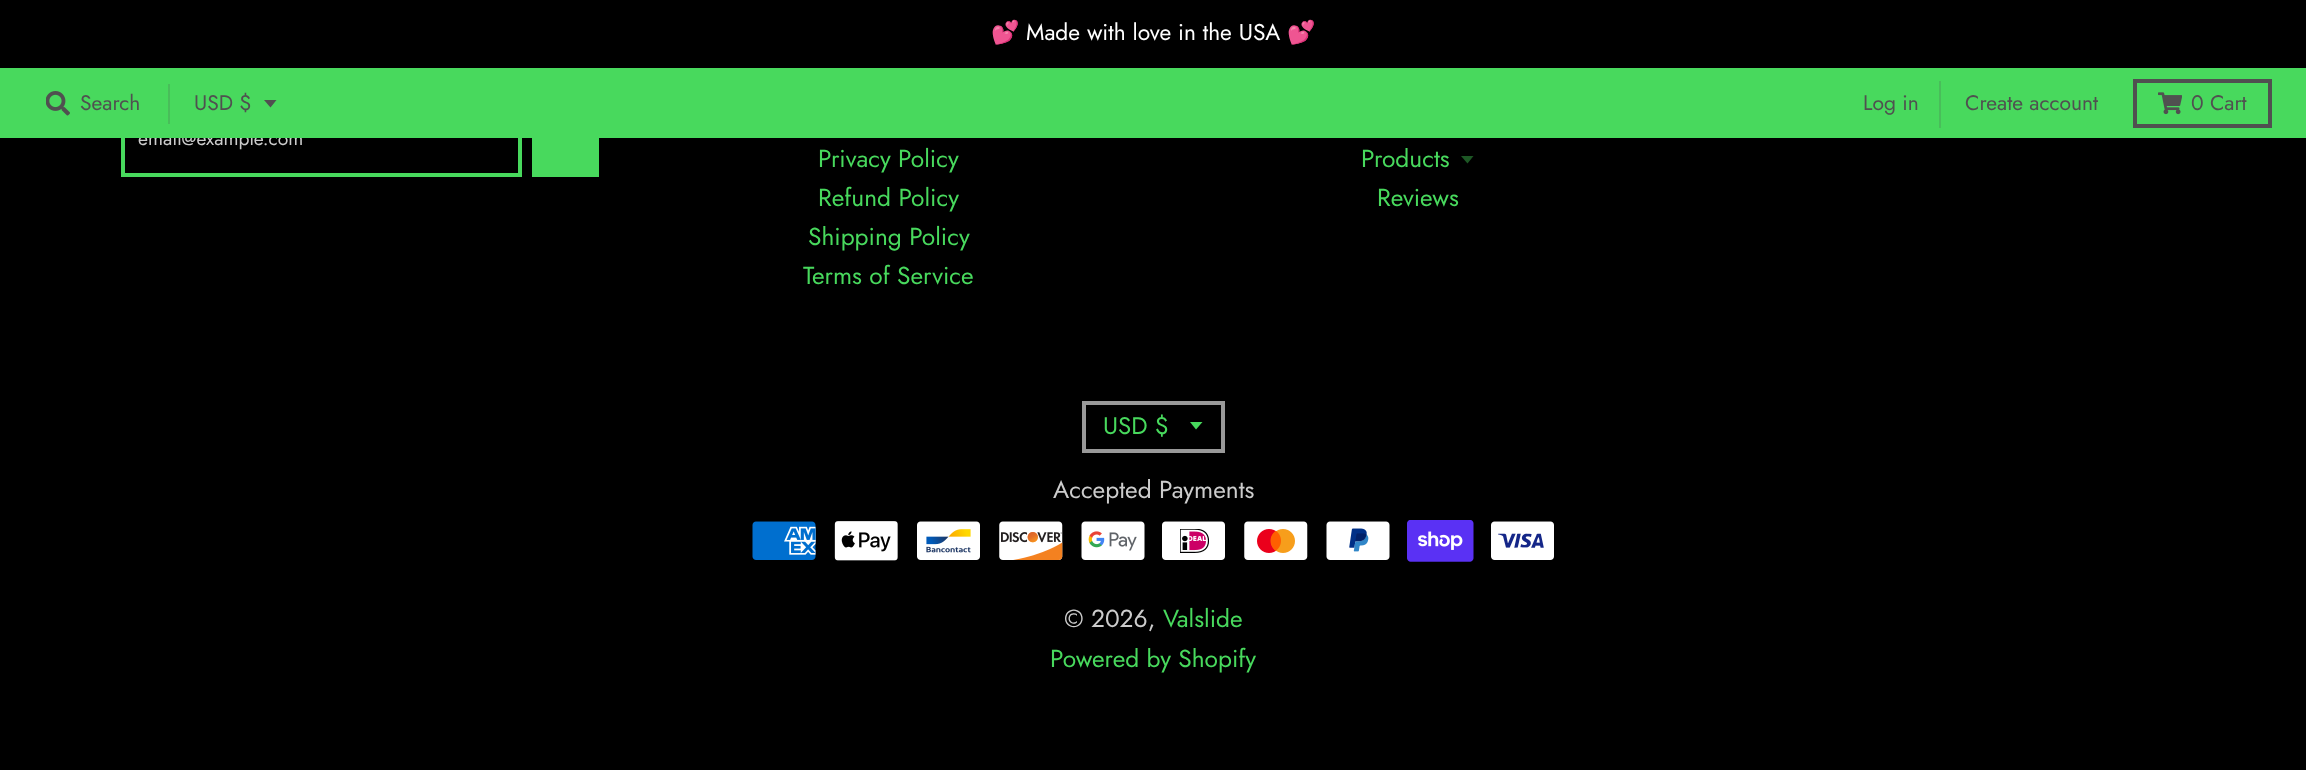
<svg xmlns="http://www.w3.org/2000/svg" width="2306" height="770">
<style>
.a{font:22.75px Noto Color Emoji;fill:#fff}
.b{font:22.75px Jost;fill:#fff}
.c{font:19.25px Jost;fill:#ccc}
.d{font:21px Jost;fill:#505050}
.e{font:24.5px Jost;fill:#48d95d}
.f{font:24px Jost;fill:#48d95d}
.g{font:24.5px Jost;fill:#ccc}
</style>
<rect width="100%" height="100%" fill="#000"/>
<path fill="none" stroke="#48d95d" stroke-width="4" d="M123 102h397v73H123z"/>
<path fill="#48d95d" d="M532 138h67v39H532z"/>
<path fill="#1d5725" d="M1461 156l6.5 7.5l6-7.5z"/>
<path fill="#48d95d" d="M1190 422l6 7.5l6.5-7.5z"/>
<path fill="none" stroke="#999" stroke-width="4" d="M1084 403h139v48H1084z"/>
<image href="3.png" x="752" y="521" width="64" height="39"/>
<image href="4.png" x="834" y="521" width="64" height="40"/>
<image href="5.png" x="917" y="521" width="63" height="39"/>
<image href="6.png" x="999" y="521" width="64" height="39"/>
<image href="7.png" x="1081" y="521" width="64" height="39"/>
<image href="8.png" x="1162" y="521" width="63" height="39"/>
<image href="9.png" x="1244" y="521" width="64" height="39"/>
<image href="10.png" x="1326" y="521" width="64" height="39"/>
<image href="11.png" x="1407" y="520" width="67" height="42"/>
<image href="12.png" x="1491" y="521" width="63" height="39"/>
<text class="a" x="991" y="40">💕</text>
<text class="b" x="1026" y="40">Made with love in the USA</text>
<text class="a" x="1287" y="40">💕</text>
<text class="c" x="138" y="145">email@example.com</text>
<path fill="#48d95d" d="M0 68h2306v70H0z"/>
<path fill="none" stroke="#505050" stroke-width="4" d="M2135 81h135v45H2135z"/>
<image href="2.png" x="2158" y="92" width="24" height="23"/>
<text class="d" x="194" y="110">USD $</text>
<path fill="#505050" d="M264 100l6.5 7.5l6-7.5z"/>
<image href="1.png" x="46" y="91" width="24" height="25"/>
<text class="d" x="2191" y="110">0 Cart</text>
<text class="d" x="1965" y="110">Create account</text>
<text class="d" x="1863" y="110">Log in</text>
<path fill="#49bd5a" d="M1939 81h2v47H1939z"/>
<path fill="#49bd5a" d="M168 84h2v40H168z"/>
<text class="d" x="80" y="110">Search</text>
<text class="e" x="818" y="167">Privacy Policy</text>
<text class="e" x="818" y="206">Refund Policy</text>
<text class="e" x="808" y="245">Shipping Policy</text>
<text class="e" x="803" y="284">Terms of Service</text>
<text class="e" x="1361" y="167">Products</text>
<text class="e" x="1377" y="206">Reviews</text>
<text class="f" x="1103" y="434">USD $</text>
<text class="g" x="1053" y="498">Accepted Payments</text>
<text class="g" x="1064" y="627">© 2026,</text>
<text class="e" x="1163" y="627">Valslide</text>
<text class="e" x="1050" y="667">Powered by Shopify</text>
</svg>
